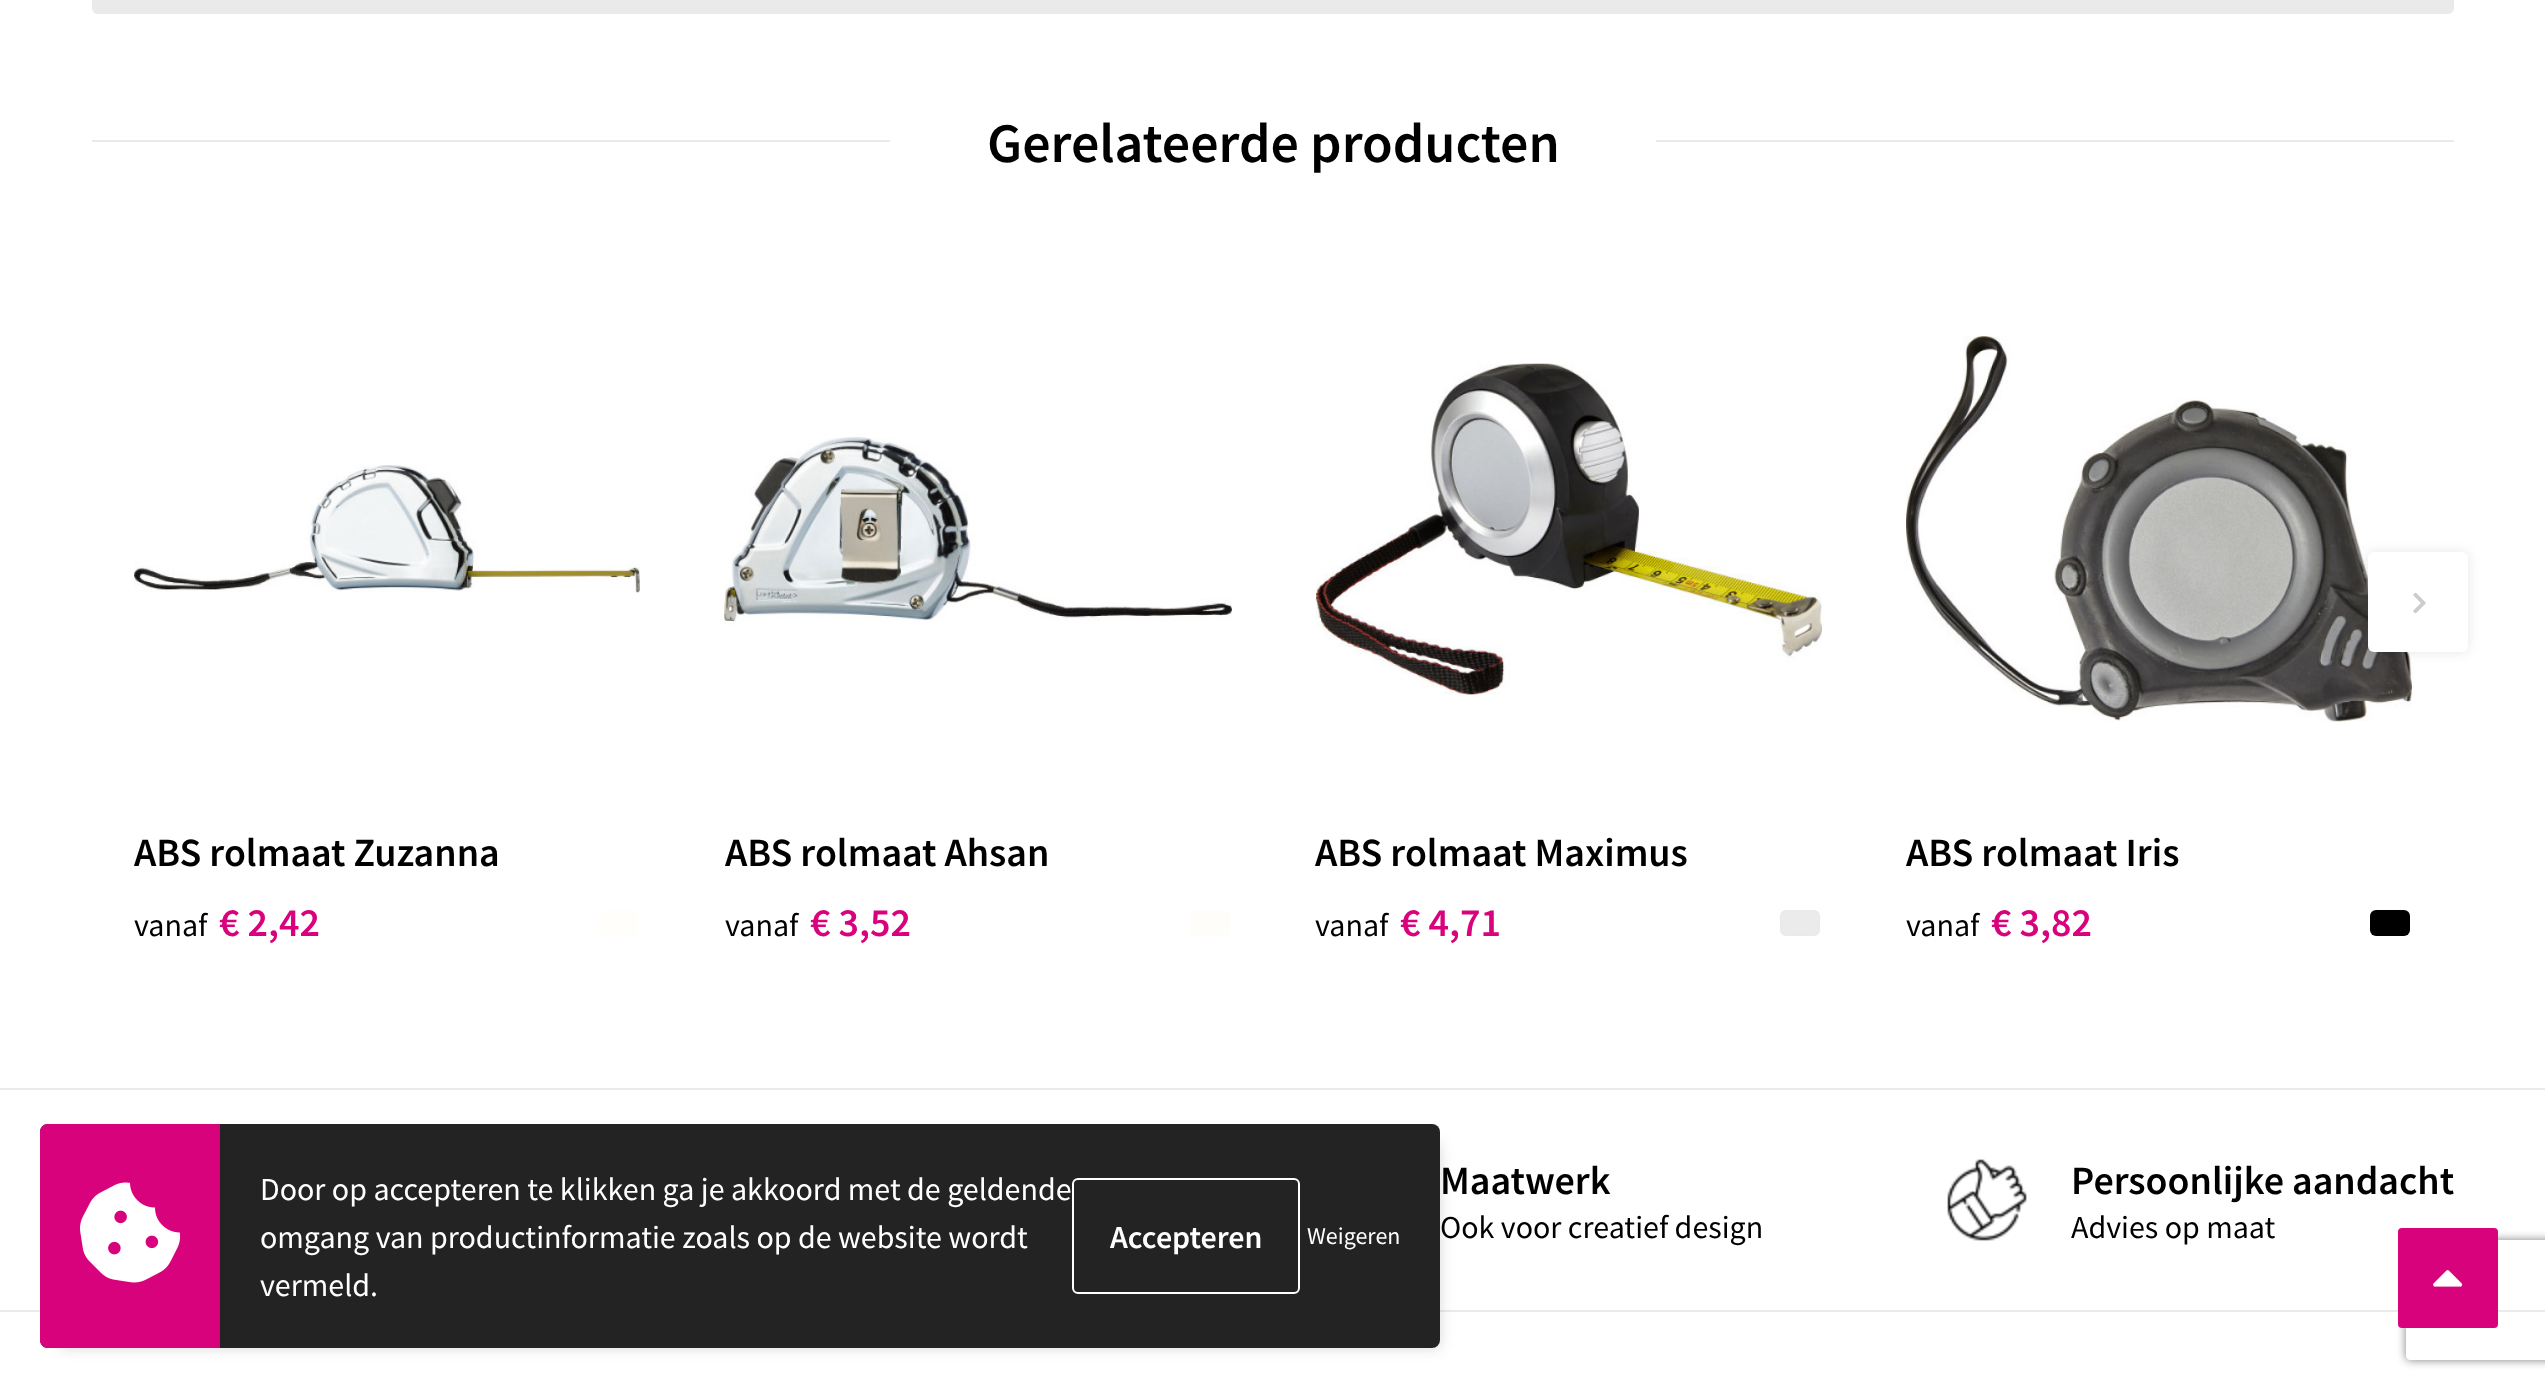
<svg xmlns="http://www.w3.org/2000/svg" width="2545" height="1387">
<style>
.a{font:600 56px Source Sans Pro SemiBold;fill:#000}
.b{font:600 40px Source Sans Pro SemiBold;fill:#000}
.c{font:32px Source Sans Pro;fill:#000}
.d{font:600 40px Source Sans Pro SemiBold;fill:#d9027d}
.e{font:32px Source Sans Pro;fill:#fff}
.f{font:600 32px Source Sans Pro SemiBold;fill:#fff}
.g{font:24px Source Sans Pro;fill:#fff}
</style>
<defs>
<clipPath id="clip1"><path d="M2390 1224h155v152h-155zm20 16h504c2 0 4 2 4 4v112c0 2-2 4-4 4h-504c-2 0-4-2-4-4v-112c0-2 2-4 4-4z" clip-rule="evenodd"/></clipPath>
</defs>
<rect width="100%" height="100%" fill="#fff"/>
<rect fill="#eaeaea" x="92" y="-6" width="2362" height="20" rx="6"/>
<path fill="#eaeaea" d="M92 140h798v2H92z"/>
<path fill="#eaeaea" d="M1656 140h798v2H1656z"/>
<image href="5.png" x="1906" y="334" width="506" height="388"/>
<rect fill="#0000001a" filter="blur(6px)" x="2368" y="552" width="100" height="100" rx="6"/>
<rect fill="#fff" x="2368" y="552" width="100" height="100" rx="6"/>
<image href="1.png" x="2413" y="592" width="13" height="22"/>
<image href="2.png" x="134" y="465" width="506" height="128"/>
<rect fill="#fffefb" x="598" y="910" width="40" height="26" rx="6"/>
<image href="3.png" x="724" y="437" width="508" height="190"/>
<rect fill="#fffdfa" x="1190" y="910" width="40" height="26" rx="6"/>
<image href="4.png" x="1316" y="363" width="506" height="332"/>
<rect fill="#ebebeb" stroke="#eaeaea" stroke-width="2" x="1781" y="911" width="38" height="24" rx="5"/>
<rect fill="#000" x="2370" y="910" width="40" height="26" rx="6"/>
<path fill="#eaeaea" d="M0 1088h2545v2H0z"/>
<image href="6.png" x="1947" y="1159" width="80" height="82"/>
<path fill="#eaeaea" d="M0 1310h2545v2H0z"/>
<g clip-path="url(#clip1)">
<rect fill="#808080" filter="blur(5px)" x="2406" y="1240" width="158" height="120" rx="4"/>
</g>
<rect fill="#d9027d" x="2398" y="1228" width="100" height="100" rx="4"/>
<image href="7.png" x="2433" y="1270" width="30" height="17"/>
<path fill="#00000026" filter="blur(7px)" d="M60 1144h1380v204H60z"/>
<rect fill="#232323" x="40" y="1124" width="1400" height="224" rx="8"/>
<path fill="#d9027d" d="M48 1124h172v224h-172c-4.5 0-8-3.5-8-8v-208c0-4.5 3.5-8 8-8z"/>
<image href="8.png" x="80" y="1182" width="101" height="101"/>
<rect fill="none" stroke="#fff" stroke-width="2" x="1073" y="1179" width="226" height="114" rx="5"/>
<text class="a" x="987" y="162">Gerelateerde producten</text>
<text class="b" x="134" y="866">ABS rolmaat Zuzanna</text>
<text class="c" x="134" y="936">vanaf</text>
<text class="d" x="219" y="936">€ 2,42</text>
<text class="b" x="725" y="866">ABS rolmaat Ahsan</text>
<text class="c" x="725" y="936">vanaf</text>
<text class="d" x="810" y="936">€ 3,52</text>
<text class="b" x="1315" y="866">ABS rolmaat Maximus</text>
<text class="c" x="1315" y="936">vanaf</text>
<text class="d" x="1400" y="936">€ 4,71</text>
<text class="b" x="1906" y="866">ABS rolmaat Iris</text>
<text class="c" x="1906" y="936">vanaf</text>
<text class="d" x="1991" y="936">€ 3,82</text>
<text class="b" x="1440" y="1194">Maatwerk</text>
<text class="c" x="1440" y="1238">Ook voor creatief design</text>
<text class="b" x="2071" y="1194">Persoonlijke aandacht</text>
<text class="c" x="2071" y="1238">Advies op maat</text>
<text class="e" x="260" y="1200">Door op accepteren te klikken ga je akkoord met de geldende</text>
<text class="e" x="260" y="1248">omgang van productinformatie zoals op de website wordt</text>
<text class="f" x="1110" y="1248">Accepteren</text>
<text class="g" x="1307" y="1244">Weigeren</text>
<text class="e" x="260" y="1296">vermeld.</text>
</svg>
